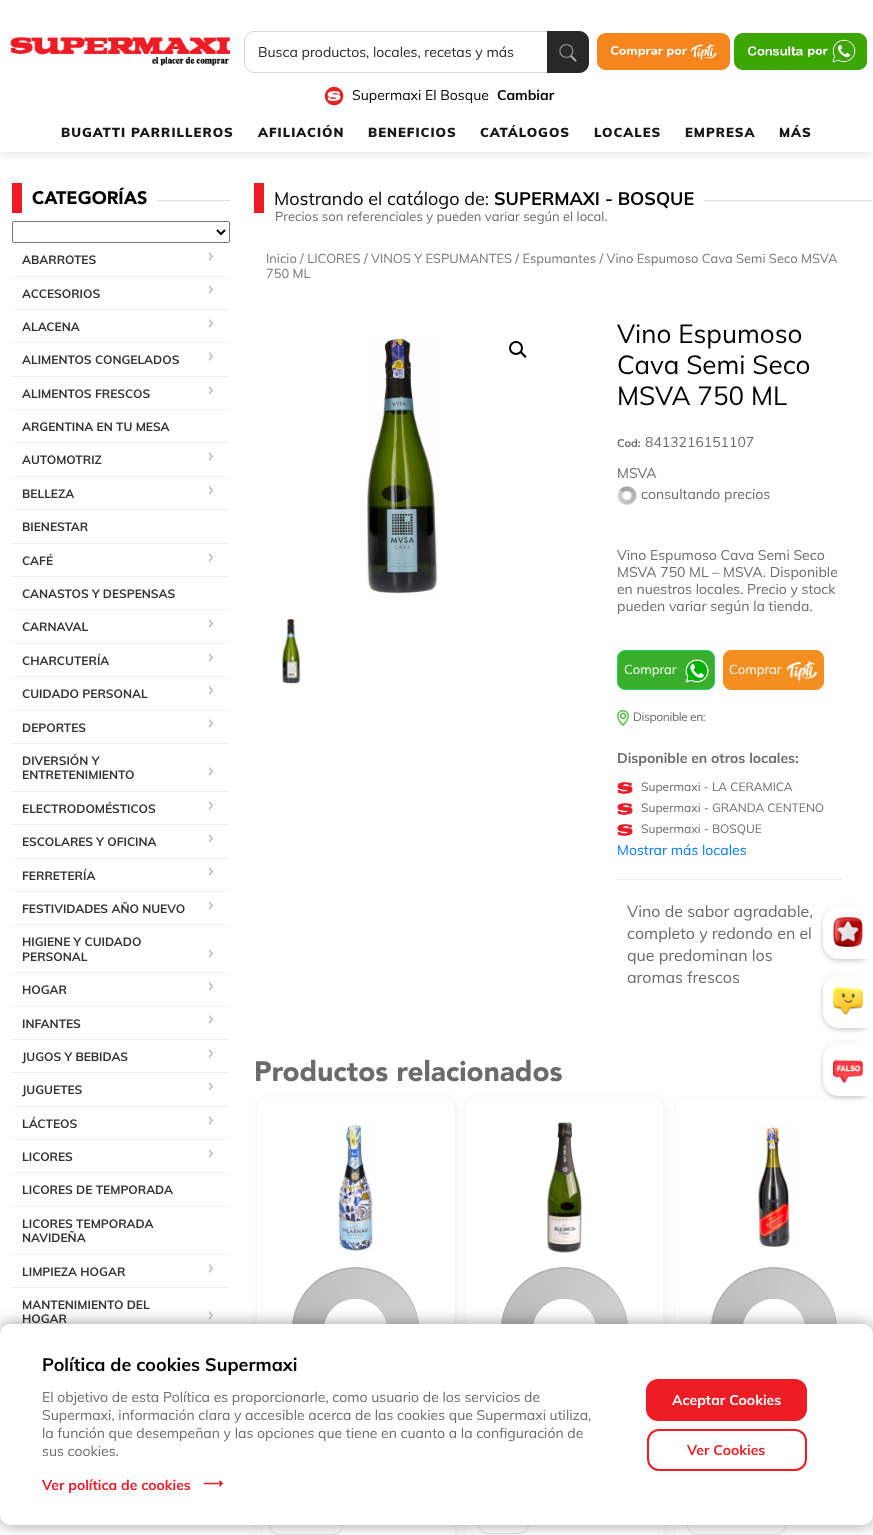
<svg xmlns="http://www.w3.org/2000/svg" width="873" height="1535">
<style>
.a{font:14px Muli;fill:#282828}
.b{font:14px Muli;fill:#000}
.c{font:bold 14px Muli;fill:#000}
.d{font:900 13px Muli;letter-spacing:1px;fill:#191616}
.e{font:900 18px Avenir;fill:#000}
.f{font:bold 12px Muli;fill:#333}
.g{font:18px Muli;fill:#000}
.h{font:bold 18px Muli;fill:#000}
.i{font:13px Muli;fill:#6b6b6b}
.j{font:12.9px Muli;fill:#767676}
.k{font:26px Muli;fill:#000}
.l{font:bold 11px Muli;fill:#6b6b6b}
.m{font:14px Muli;fill:#6b6b6b}
.n{font:13px Muli;fill:#fff}
.o{font:12px Muli;letter-spacing:-0.4px;fill:#6b6b6b}
.p{font:bold 14px Muli;fill:#6b6b6b}
.q{font:12px Muli;fill:#6b6b6b}
.r{font:14px Muli;fill:#007bff}
.s{font:16px Muli;fill:#6b6b6b}
.t{font:900 28px Avenir;fill:#6b6b6b}
.u{font:bold 14px Muli;fill:#ed1d25}
.v{font:bold 14px DejaVu Sans;fill:#ed1d25}
.w{font:bold 14px Muli;fill:#fff}
</style>
<defs>
<clipPath id="clip1"><path d="M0 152h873v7H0z"/></clipPath>
</defs>
<rect width="100%" height="100%" fill="#fff"/>
<g clip-path="url(#clip1)">
<path fill="#0000001a" filter="blur(6px)" d="M-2 -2h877v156H-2z"/>
</g>
<image href="1.png" x="10" y="37" width="220" height="29"/>
<rect fill="none" stroke="#d5d5d5" x="244.5" y="31.5" width="344" height="41" rx="9.5"/>
<path fill="#282828" d="M547 31h32c5.5 0 10 4.5 10 10v22c0 5.5-4.5 10-10 10h-32z"/>
<image href="2.png" x="559" y="43" width="18" height="19"/>
<image href="3.png" x="597" y="33" width="133" height="37"/>
<image href="4.png" x="734" y="33" width="133" height="37"/>
<image href="5.png" x="324" y="86" width="20" height="20"/>
<path fill="#ed1c24" d="M12 183h10v30H12z"/>
<path fill="#e1e1e1" d="M157 200h73v1H157z"/>
<rect fill="none" stroke="#767676" x="12.5" y="221.5" width="217" height="21" rx="1.5"/>
<path fill="none" stroke="#000" stroke-width="2" d="M217 230l4 4l4-4"/>
<path fill="none" stroke="#e1e1e1" stroke-dasharray="1 1" d="M12 276.5h218"/>
<image href="6.png" x="209" y="252" width="4" height="9"/>
<path fill="none" stroke="#e1e1e1" stroke-dasharray="1 1" d="M12 309.5h218"/>
<image href="6.png" x="209" y="285" width="4" height="9"/>
<path fill="none" stroke="#e1e1e1" stroke-dasharray="1 1" d="M12 342.5h218"/>
<image href="6.png" x="209" y="319" width="4" height="9"/>
<path fill="none" stroke="#e1e1e1" stroke-dasharray="1 1" d="M12 376.5h218"/>
<image href="6.png" x="209" y="352" width="4" height="9"/>
<path fill="none" stroke="#e1e1e1" stroke-dasharray="1 1" d="M12 409.5h218"/>
<image href="6.png" x="209" y="386" width="4" height="9"/>
<path fill="none" stroke="#e1e1e1" stroke-dasharray="1 1" d="M12 442.5h218"/>
<path fill="none" stroke="#e1e1e1" stroke-dasharray="1 1" d="M12 476.5h218"/>
<image href="6.png" x="209" y="452" width="4" height="9"/>
<path fill="none" stroke="#e1e1e1" stroke-dasharray="1 1" d="M12 509.5h218"/>
<image href="6.png" x="209" y="486" width="4" height="9"/>
<path fill="none" stroke="#e1e1e1" stroke-dasharray="1 1" d="M12 543.5h218"/>
<path fill="none" stroke="#e1e1e1" stroke-dasharray="1 1" d="M12 576.5h218"/>
<image href="6.png" x="209" y="553" width="4" height="9"/>
<path fill="none" stroke="#e1e1e1" stroke-dasharray="1 1" d="M12 609.5h218"/>
<path fill="none" stroke="#e1e1e1" stroke-dasharray="1 1" d="M12 643.5h218"/>
<image href="6.png" x="209" y="619" width="4" height="9"/>
<path fill="none" stroke="#e1e1e1" stroke-dasharray="1 1" d="M12 676.5h218"/>
<image href="6.png" x="209" y="653" width="4" height="9"/>
<path fill="none" stroke="#e1e1e1" stroke-dasharray="1 1" d="M12 710.5h218"/>
<image href="6.png" x="209" y="686" width="4" height="9"/>
<path fill="none" stroke="#e1e1e1" stroke-dasharray="1 1" d="M12 743.5h218"/>
<image href="6.png" x="209" y="719" width="4" height="9"/>
<path fill="none" stroke="#e1e1e1" stroke-dasharray="1 1" d="M12 791.5h218"/>
<image href="6.png" x="209" y="767" width="4" height="9"/>
<path fill="none" stroke="#e1e1e1" stroke-dasharray="1 1" d="M12 824.5h218"/>
<image href="6.png" x="209" y="801" width="4" height="9"/>
<path fill="none" stroke="#e1e1e1" stroke-dasharray="1 1" d="M12 858.5h218"/>
<image href="6.png" x="209" y="834" width="4" height="9"/>
<path fill="none" stroke="#e1e1e1" stroke-dasharray="1 1" d="M12 891.5h218"/>
<image href="6.png" x="209" y="867" width="4" height="9"/>
<path fill="none" stroke="#e1e1e1" stroke-dasharray="1 1" d="M12 924.5h218"/>
<image href="6.png" x="209" y="901" width="4" height="9"/>
<path fill="none" stroke="#e1e1e1" stroke-dasharray="1 1" d="M12 972.5h218"/>
<image href="6.png" x="209" y="949" width="4" height="9"/>
<path fill="none" stroke="#e1e1e1" stroke-dasharray="1 1" d="M12 1006.5h218"/>
<image href="6.png" x="209" y="982" width="4" height="9"/>
<path fill="none" stroke="#e1e1e1" stroke-dasharray="1 1" d="M12 1039.5h218"/>
<image href="6.png" x="209" y="1015" width="4" height="9"/>
<path fill="none" stroke="#e1e1e1" stroke-dasharray="1 1" d="M12 1072.5h218"/>
<image href="6.png" x="209" y="1049" width="4" height="9"/>
<path fill="none" stroke="#e1e1e1" stroke-dasharray="1 1" d="M12 1106.5h218"/>
<image href="6.png" x="209" y="1082" width="4" height="9"/>
<path fill="none" stroke="#e1e1e1" stroke-dasharray="1 1" d="M12 1139.5h218"/>
<image href="6.png" x="209" y="1116" width="4" height="9"/>
<path fill="none" stroke="#e1e1e1" stroke-dasharray="1 1" d="M12 1172.5h218"/>
<image href="6.png" x="209" y="1149" width="4" height="9"/>
<path fill="none" stroke="#e1e1e1" stroke-dasharray="1 1" d="M12 1206.5h218"/>
<path fill="none" stroke="#e1e1e1" stroke-dasharray="1 1" d="M12 1254.5h218"/>
<path fill="none" stroke="#e1e1e1" stroke-dasharray="1 1" d="M12 1287.5h218"/>
<image href="6.png" x="209" y="1264" width="4" height="9"/>
<image href="6.png" x="209" y="1311" width="4" height="9"/>
<path fill="#ed1c24" d="M254 183h10v30H254z"/>
<path fill="#e1e1e1" d="M704 200h168v1H704z"/>
<image href="7.png" x="367" y="337" width="71" height="257"/>
<image href="8.png" x="282" y="619" width="19" height="65"/>
<circle fill="none" stroke="#000" stroke-width="2" cx="516" cy="348" r="6"/>
<path fill="#000" d="M520.5 352c1-1.5 3 1.5 3.5 2c.5 .5 3.5 2 2 3.5c-1 1-3-1.5-3.5-2c-.5-1-3-2.5-2-3.5z"/>
<image href="9.png" x="617" y="486" width="20" height="19"/>
<rect fill="#39ae2a" stroke="#25d366" x="617.5" y="650.5" width="97" height="39" rx="7.5"/>
<image href="10.png" x="685" y="659" width="24" height="24"/>
<rect fill="#f28f20" stroke="#f28f20" x="723.5" y="650.5" width="100" height="39" rx="7.5"/>
<image href="11.png" x="786" y="660" width="32" height="22"/>
<image href="12.png" x="617" y="710" width="12" height="16"/>
<image href="13.png" x="617" y="782" width="16" height="12"/>
<image href="13.png" x="617" y="803" width="16" height="12"/>
<image href="13.png" x="617" y="824" width="16" height="12"/>
<path fill="#efefef" d="M617 879h225v1H617z"/>
<rect fill="#0000000d" filter="blur(4px)" x="258" y="1099" width="199" height="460" rx="12"/>
<rect fill="#fff" stroke="#f9f9f9" x="256.5" y="1097.5" width="198" height="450" rx="11.5"/>
<image href="14.png" x="338" y="1124" width="37" height="128"/>
<image href="15.png" x="291" y="1267" width="129" height="57"/>
<rect fill="none" stroke="#e1e1e1" x="269.5" y="1514.5" width="73" height="20" rx="9.5"/>
<rect fill="#0000000d" filter="blur(4px)" x="467" y="1099" width="199" height="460" rx="12"/>
<rect fill="#fff" stroke="#f9f9f9" x="465.5" y="1097.5" width="198" height="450" rx="11.5"/>
<image href="16.png" x="547" y="1122" width="36" height="131"/>
<image href="15.png" x="500" y="1267" width="129" height="57"/>
<rect fill="none" stroke="#e1e1e1" x="478.5" y="1513.5" width="50" height="20" rx="9.5"/>
<rect fill="none" stroke="#f9f9f9" x="674.5" y="1097.5" width="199" height="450" rx="11.5"/>
<image href="17.png" x="756" y="1125" width="38" height="122"/>
<image href="18.png" x="710" y="1267" width="128" height="57"/>
<rect fill="none" stroke="#e1e1e1" x="687.5" y="1514.5" width="98" height="20" rx="9.5"/>
<rect fill="#00000033" filter="blur(2.5px)" x="823" y="908" width="50" height="53" rx="16"/>
<path fill="#fff" d="M839 906h34v53h-34c-9 0-16-7-16-16v-21c0-9 7-16 16-16z"/>
<image href="19.png" x="833" y="917" width="30" height="30"/>
<rect fill="#00000033" filter="blur(2.5px)" x="823" y="976" width="50" height="54" rx="16"/>
<path fill="#fff" d="M839 974h34v54h-34c-9 0-16-7-16-16v-22c0-9 7-16 16-16z"/>
<image href="20.png" x="833" y="987" width="30" height="28"/>
<rect fill="#00000033" filter="blur(2.5px)" x="823" y="1045" width="50" height="53" rx="16"/>
<path fill="#fff" d="M839 1043h34v53h-34c-9 0-16-7-16-16v-21c0-9 7-16 16-16z"/>
<image href="21.png" x="833" y="1059" width="30" height="25"/>
<rect fill="#00000066" filter="blur(7.5px)" y="1324" width="873" height="201" rx="10"/>
<rect fill="#fff" y="1324" width="873" height="201" rx="10"/>
<rect fill="#ed1d25" stroke="#ed1d25" stroke-width="2" x="647" y="1380" width="159" height="40" rx="11"/>
<rect fill="none" stroke="#ed1d25" stroke-width="2" x="648" y="1430" width="158" height="40" rx="11"/>
<text class="a" x="258" y="57">Busca productos, locales, recetas y más</text>
<text class="b" x="352" y="100">Supermaxi El Bosque</text>
<text class="c" x="497" y="100">Cambiar</text>
<text class="d" x="61" y="137">BUGATTI PARRILLEROS</text>
<text class="d" x="258" y="137">AFILIACIÓN</text>
<text class="d" x="368" y="137">BENEFICIOS</text>
<text class="d" x="480" y="137">CATÁLOGOS</text>
<text class="d" x="594" y="137">LOCALES</text>
<text class="d" x="685" y="137">EMPRESA</text>
<text class="d" x="779" y="137">MÁS</text>
<text class="e" x="32" y="204">CATEGORÍAS</text>
<text class="f" x="22" y="264">ABARROTES</text>
<text class="f" x="22" y="298">ACCESORIOS</text>
<text class="f" x="22" y="331">ALACENA</text>
<text class="f" x="22" y="364">ALIMENTOS CONGELADOS</text>
<text class="f" x="22" y="398">ALIMENTOS FRESCOS</text>
<text class="f" x="22" y="431">ARGENTINA EN TU MESA</text>
<text class="f" x="22" y="464">AUTOMOTRIZ</text>
<text class="f" x="22" y="498">BELLEZA</text>
<text class="f" x="22" y="531">BIENESTAR</text>
<text class="f" x="22" y="565">CAFÉ</text>
<text class="f" x="22" y="598">CANASTOS Y DESPENSAS</text>
<text class="f" x="22" y="631">CARNAVAL</text>
<text class="f" x="22" y="665">CHARCUTERÍA</text>
<text class="f" x="22" y="698">CUIDADO PERSONAL</text>
<text class="f" x="22" y="732">DEPORTES</text>
<text class="f" x="22" y="765">DIVERSIÓN Y</text>
<text class="f" x="22" y="779">ENTRETENIMIENTO</text>
<text class="f" x="22" y="813">ELECTRODOMÉSTICOS</text>
<text class="f" x="22" y="846">ESCOLARES Y OFICINA</text>
<text class="f" x="22" y="880">FERRETERÍA</text>
<text class="f" x="22" y="913">FESTIVIDADES AÑO NUEVO</text>
<text class="f" x="22" y="946">HIGIENE Y CUIDADO</text>
<text class="f" x="22" y="961">PERSONAL</text>
<text class="f" x="22" y="994">HOGAR</text>
<text class="f" x="22" y="1028">INFANTES</text>
<text class="f" x="22" y="1061">JUGOS Y BEBIDAS</text>
<text class="f" x="22" y="1094">JUGUETES</text>
<text class="f" x="22" y="1128">LÁCTEOS</text>
<text class="f" x="22" y="1161">LICORES</text>
<text class="f" x="22" y="1194">LICORES DE TEMPORADA</text>
<text class="f" x="22" y="1228">LICORES TEMPORADA</text>
<text class="f" x="22" y="1242">NAVIDEÑA</text>
<text class="f" x="22" y="1276">LIMPIEZA HOGAR</text>
<text class="f" x="22" y="1309">MANTENIMIENTO DEL</text>
<text class="f" x="22" y="1323">HOGAR</text>
<text class="g" x="274" y="205">Mostrando el catálogo de:</text>
<text class="h" x="494" y="205">SUPERMAXI - BOSQUE</text>
<text class="i" x="275" y="221">Precios son referenciales y pueden variar según el local.</text>
<text class="j" x="266" y="263">Inicio / LICORES / VINOS Y ESPUMANTES / Espumantes / Vino Espumoso Cava Semi Seco MSVA</text>
<text class="j" x="266" y="278">750 ML</text>
<text class="k" x="617" y="343">Vino Espumoso</text>
<text class="k" x="617" y="374">Cava Semi Seco</text>
<text class="k" x="617" y="405">MSVA 750 ML</text>
<text class="l" x="617" y="447">Cod:</text>
<text class="m" x="645" y="447">8413216151107</text>
<text class="m" x="617" y="478">MSVA</text>
<text class="m" x="641" y="499">consultando precios</text>
<text class="m" x="617" y="560">Vino Espumoso Cava Semi Seco</text>
<text class="m" x="617" y="577">MSVA 750 ML – MSVA. Disponible</text>
<text class="m" x="617" y="594">en nuestros locales. Precio y stock</text>
<text class="m" x="617" y="611">pueden variar según la tienda.</text>
<text class="n" x="624" y="674">Comprar</text>
<text class="n" x="729" y="674">Comprar</text>
<text class="o" x="633" y="721">Disponible en:</text>
<text class="p" x="617" y="763">Disponible en otros locales:</text>
<text class="q" x="641" y="791">Supermaxi - LA CERAMICA</text>
<text class="q" x="641" y="812">Supermaxi - GRANDA CENTENO</text>
<text class="q" x="641" y="833">Supermaxi - BOSQUE</text>
<text class="r" x="617" y="855">Mostrar más locales</text>
<text class="s" x="627" y="917">Vino de sabor agradable,</text>
<text class="s" x="627" y="939">completo y redondo en el</text>
<text class="s" x="627" y="961">que predominan los</text>
<text class="s" x="627" y="983">aromas frescos</text>
<text class="t" x="254" y="1081">Productos relacionados</text>
<text class="h" x="42" y="1371">Política de cookies Supermaxi</text>
<text class="m" x="42" y="1402">El objetivo de esta Política es proporcionarle, como usuario de los servicios de</text>
<text class="m" x="42" y="1420">Supermaxi, información clara y accesible acerca de las cookies que Supermaxi utiliza,</text>
<text class="m" x="42" y="1438">la función que desempeñan y las opciones que tiene en cuanto a la configuración de</text>
<text class="m" x="42" y="1456">sus cookies.</text>
<text class="u" x="42" y="1490">Ver política de cookies</text>
<text class="v" x="203" y="1488">⟶</text>
<text class="w" x="672" y="1405">Aceptar Cookies</text>
<text class="u" x="687" y="1455">Ver Cookies</text>
</svg>
